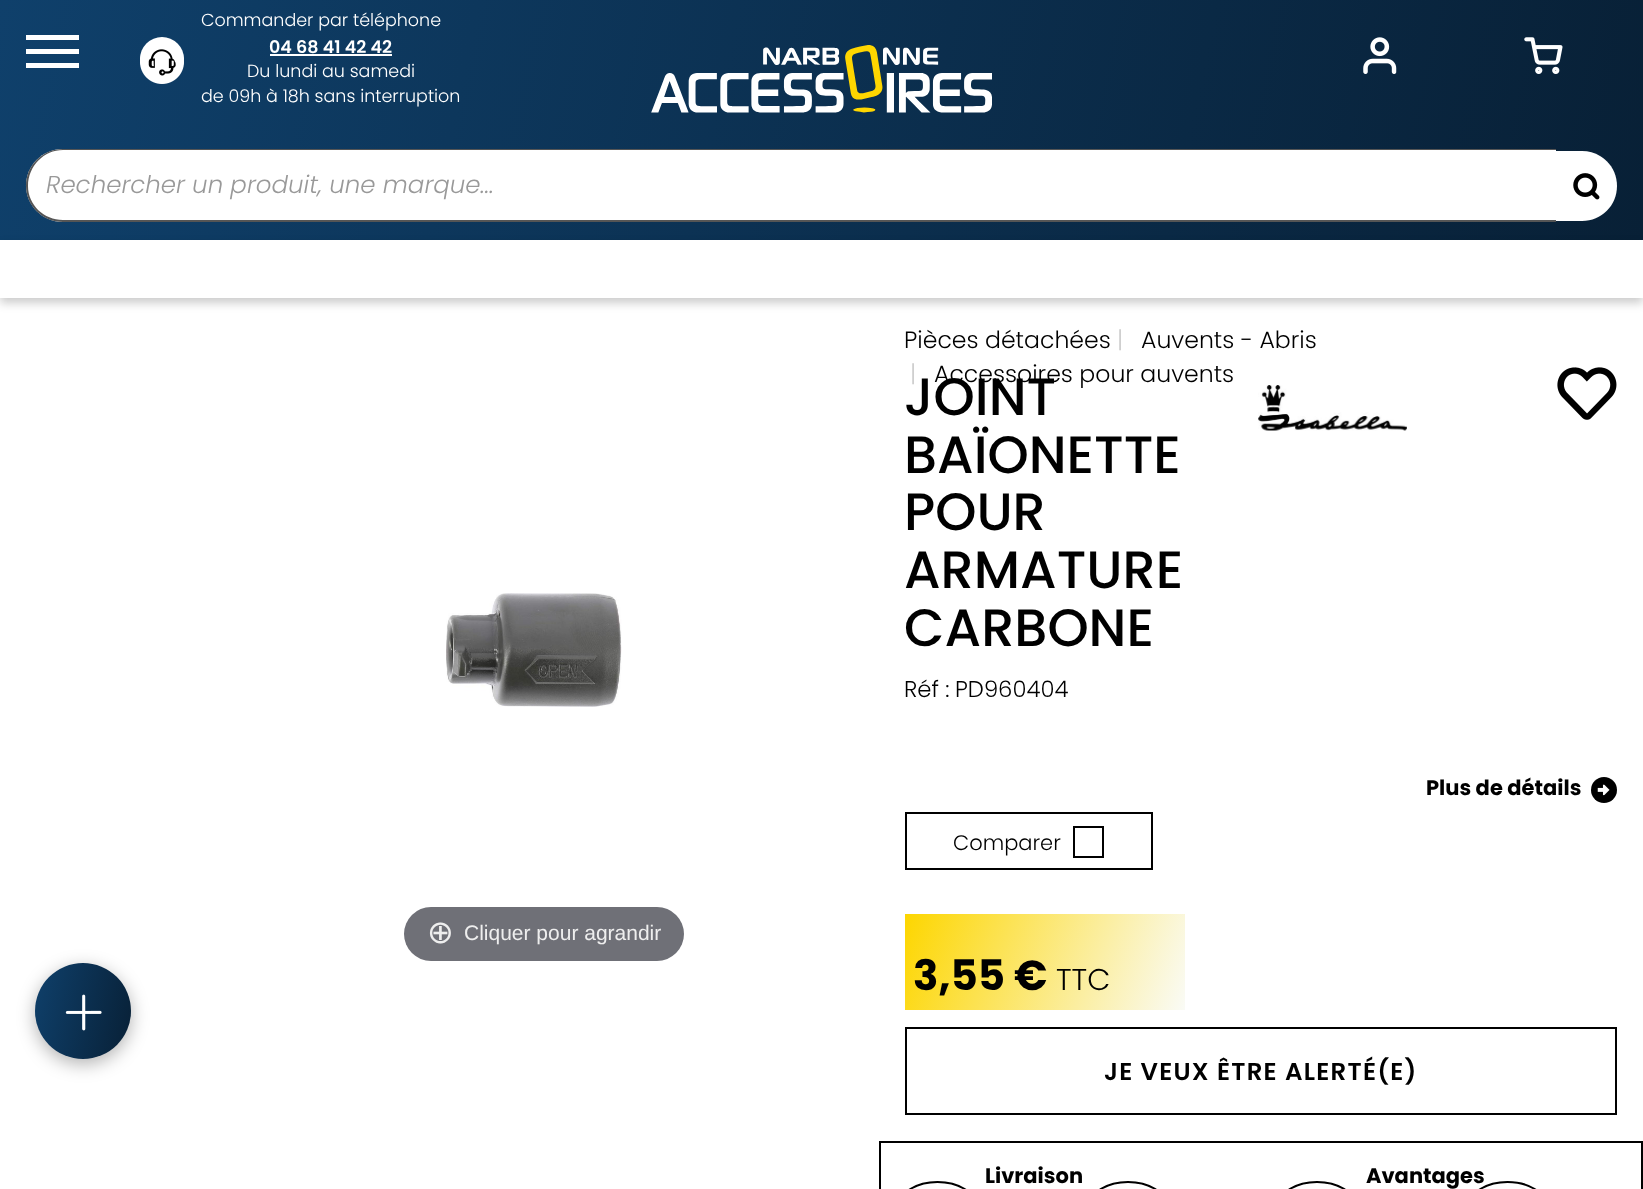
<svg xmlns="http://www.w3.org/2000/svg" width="1643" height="1189">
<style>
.a{font:300 17.5px Poppins;fill:#fff}
.b{font:600 17.5px Poppins;fill:#fff}
.c{font:italic 300 24.5px Poppins;fill:#999}
.d{font:300 23.6px Poppins;fill:#000}
.e{font:300 23.6px Poppins;fill:#ccc}
.f{font:32px DejaVu Sans;fill:#eee}
.g{font:21px Liberation Sans;fill:#eee}
.h{font:500 52.5px Poppins;fill:#000}
.i{font:300 22.75px Poppins;fill:#000}
.j{font:bold 21px Poppins;fill:#000}
.k{font:300 21px Poppins;fill:#000}
.l{font:bold 42px Poppins;fill:#000}
.m{font:300 30px Poppins;fill:#000}
.n{font:600 24.5px Poppins;letter-spacing:1.25px;fill:#000}
</style>
<defs>
<linearGradient id="g1" gradientUnits="userSpaceOnUse" x1="11" y1="-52" x2="1632" y2="292"><stop offset="0" stop-color="#0f406b"/><stop offset="1" stop-color="#082036"/></linearGradient>
<linearGradient id="g2" gradientUnits="userSpaceOnUse" x1="27" y1="999" x2="139" y2="1022"><stop offset="0" stop-color="#0f406b"/><stop offset="1" stop-color="#082036"/></linearGradient>
<linearGradient id="g3" gradientUnits="userSpaceOnUse" x1="906" y1="911" x2="1184" y2="1012"><stop offset="0" stop-color="#fdd600"/><stop offset="1" stop-color="#fafbf6"/></linearGradient>
</defs>
<rect width="100%" height="100%" fill="#fff"/>
<path fill="url(#g1)" d="M0 0h1643v240H0z"/>
<path fill="#fff" d="M26 35h53v5H26z"/>
<path fill="#fff" d="M26 49h53v5H26z"/>
<path fill="#fff" d="M26 63h53v5H26z"/>
<circle fill="#fff" cx="162" cy="59" r="22"/>
<image href="1.png" x="140" y="49" width="44" height="35"/>
<path fill="#fff" d="M270 54h122v2H270z"/>
<image href="2.png" x="1363" y="37" width="34" height="37"/>
<image href="3.png" x="1524" y="37" width="39" height="37"/>
<image href="4.png" x="651" y="45" width="341" height="68"/>
<path fill="#fff" d="M62.5 149h1493.5v73h-1493.5c-20 0-36.5-16.5-36.5-36.5c0-20 16.5-36.5 36.5-36.5z"/>
<path fill="#555" fill-rule="evenodd" d="M63 149h1493v73h-1493c-20 0-37-16-37-36c0-21 17-37 37-37zm0 1h1493v70h-1493c-19 0-35-15-35-34c0-20 16-36 35-36z"/>
<path fill="#fff" d="M1556 151h26c19.5 0 35 15.5 35 35c0 19.5-15.5 35-35 35h-26z"/>
<image href="5.png" x="1573" y="173" width="27" height="27"/>
<path fill="#00000033" filter="blur(5px)" d="M0 245h1643v58H0z"/>
<path fill="#fff" d="M0 240h1643v58H0z"/>
<rect fill="#0000004d" filter="blur(9px)" x="35" y="968" width="96" height="96" rx="48"/>
<circle fill="url(#g2)" cx="83" cy="1011" r="48"/>
<image href="6.png" x="65" y="994" width="37" height="37"/>
<image href="7.png" x="446" y="593" width="176" height="114"/>
<rect fill="#6f7077" x="404" y="907" width="280" height="54" rx="27"/>
<image href="8.png" x="1258" y="385" width="149" height="46"/>
<image href="9.png" x="1557" y="367" width="60" height="53"/>
<circle fill="#000" cx="1604" cy="790" r="13"/>
<image href="10.png" x="1597" y="784" width="13" height="12"/>
<path fill="none" stroke="#000" stroke-width="2" d="M906 813h246v56H906z"/>
<path fill="none" stroke="#000" stroke-width="2" d="M1074 827h29v30H1074z"/>
<path fill="url(#g3)" d="M905 914h280v96H905z"/>
<path fill="none" stroke="#000" stroke-width="2" d="M906 1028h710v86H906z"/>
<path fill="none" stroke="#000" stroke-width="2" d="M880 1142h762v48H880z"/>
<rect fill="none" stroke="#000" stroke-width="2" x="899" y="1182" width="77" height="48" rx="38.5"/>
<rect fill="none" stroke="#000" stroke-width="2" x="1279" y="1182" width="76" height="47" rx="38"/>
<rect fill="none" stroke="#000" stroke-width="2" x="1090" y="1182" width="76" height="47" rx="38"/>
<rect fill="none" stroke="#000" stroke-width="2" x="1469" y="1182" width="77" height="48" rx="38.5"/>
<text class="a" x="201" y="26">Commander par téléphone</text>
<text class="b" x="269" y="53">04 68 41 42 42</text>
<text class="a" x="247" y="77">Du lundi au samedi</text>
<text class="a" x="201" y="102">de 09h à 18h sans interruption</text>
<text class="c" x="46" y="193">Rechercher un produit, une marque...</text>
<text class="d" x="904" y="348">Pièces détachées</text>
<text class="e" x="1117" y="348">|</text>
<text class="d" x="1141" y="348">Auvents - Abris</text>
<text class="e" x="910" y="382">|</text>
<text class="d" x="934" y="382">Accessoires pour auvents</text>
<text class="f" x="427" y="943">⊕</text>
<text class="g" x="464" y="940">Cliquer pour agrandir</text>
<text class="h" x="904" y="415">JOINT</text>
<text class="h" x="904" y="473">BAÏONETTE</text>
<text class="h" x="904" y="530">POUR</text>
<text class="h" x="904" y="588">ARMATURE</text>
<text class="h" x="904" y="646">CARBONE</text>
<text class="i" x="904" y="697">Réf :</text>
<text class="i" x="955" y="697">PD960404</text>
<text class="j" x="1426" y="795">Plus de détails</text>
<text class="k" x="953" y="850">Comparer</text>
<text class="l" x="913" y="990">3,55 €</text>
<text class="m" x="1056" y="990">TTC</text>
<text class="n" x="1104" y="1080">JE VEUX ÊTRE ALERTÉ(E)</text>
<text class="j" x="985" y="1183">Livraison</text>
<text class="j" x="1366" y="1183">Avantages</text>
</svg>
